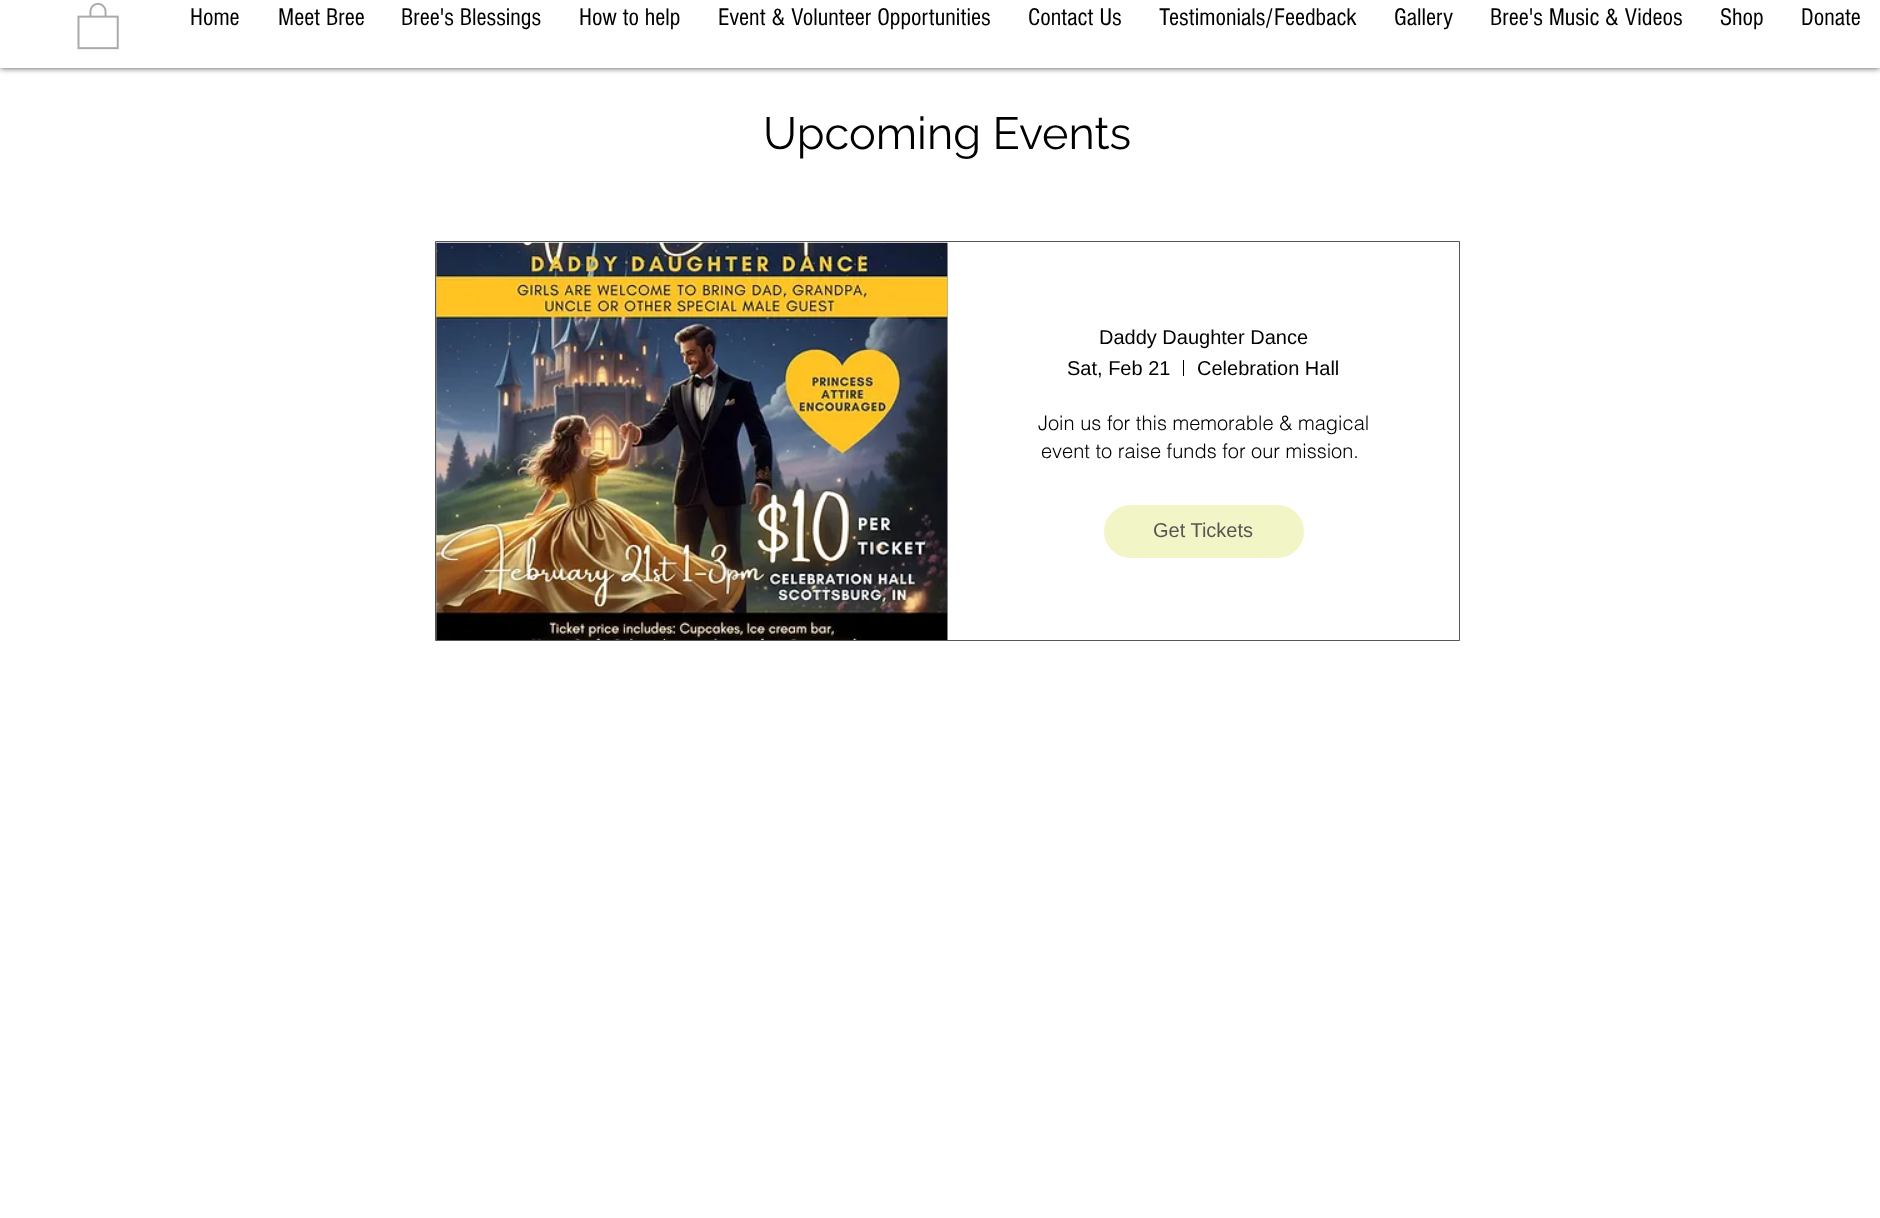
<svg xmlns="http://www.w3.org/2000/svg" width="1880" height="1218">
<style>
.a{font:25px 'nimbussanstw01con';fill:#000}
.b{font:45px Raleway;fill:#000}
.c{font:20px Liberation Sans;fill:#000}
.d{font:300 20px helvetica;fill:#000}
.e{font:20px Liberation Sans;fill:#555}
</style>
<defs>
<clipPath id="clip1"><path d="M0 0h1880v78h-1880zm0 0h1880v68h-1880z" clip-rule="evenodd"/></clipPath>
</defs>
<rect width="100%" height="100%" fill="#fff"/>
<g clip-path="url(#clip1)">
<path fill="#000000b3" filter="blur(3px)" d="M0 0h1880v68H0z"/>
</g>
<path fill="#ffffff99" d="M0 67h1880v1H0z"/>
<image href="1.png" x="77" y="2" width="42" height="48"/>
<path fill="none" stroke="#555" d="M435.5 241.5h1024v399H435.5z"/>
<path fill="#aaa" d="M436 243h512v397H436z"/>
<image href="2.png" x="436" y="242" width="512" height="398"/>
<path fill="#000" d="M1183 360h1v16H1183z"/>
<rect fill="#f2f5c6" x="1104" y="505" width="200" height="53" rx="26.5"/>
<text class="a" x="190" y="25">Home</text>
<text class="a" x="278" y="25">Meet Bree</text>
<text class="a" x="401" y="25">Bree's Blessings</text>
<text class="a" x="579" y="25">How to help</text>
<text class="a" x="718" y="25">Event &amp; Volunteer Opportunities</text>
<text class="a" x="1028" y="25">Contact Us</text>
<text class="a" x="1159" y="25">Testimonials/Feedback</text>
<text class="a" x="1394" y="25">Gallery</text>
<text class="a" x="1490" y="25">Bree's Music &amp; Videos</text>
<text class="a" x="1720" y="25">Shop</text>
<text class="a" x="1801" y="25">Donate</text>
<text class="b" x="763" y="149">Upcoming Events</text>
<text class="c" x="1099" y="344">Daddy Daughter Dance</text>
<text class="c" x="1067" y="375">Sat, Feb 21</text>
<text class="c" x="1197" y="375">Celebration Hall</text>
<text class="d" x="1038" y="430">Join us for this memorable &amp; magical</text>
<text class="d" x="1041" y="458">event to raise funds for our mission.</text>
<text class="e" x="1153" y="537">Get Tickets</text>
</svg>
